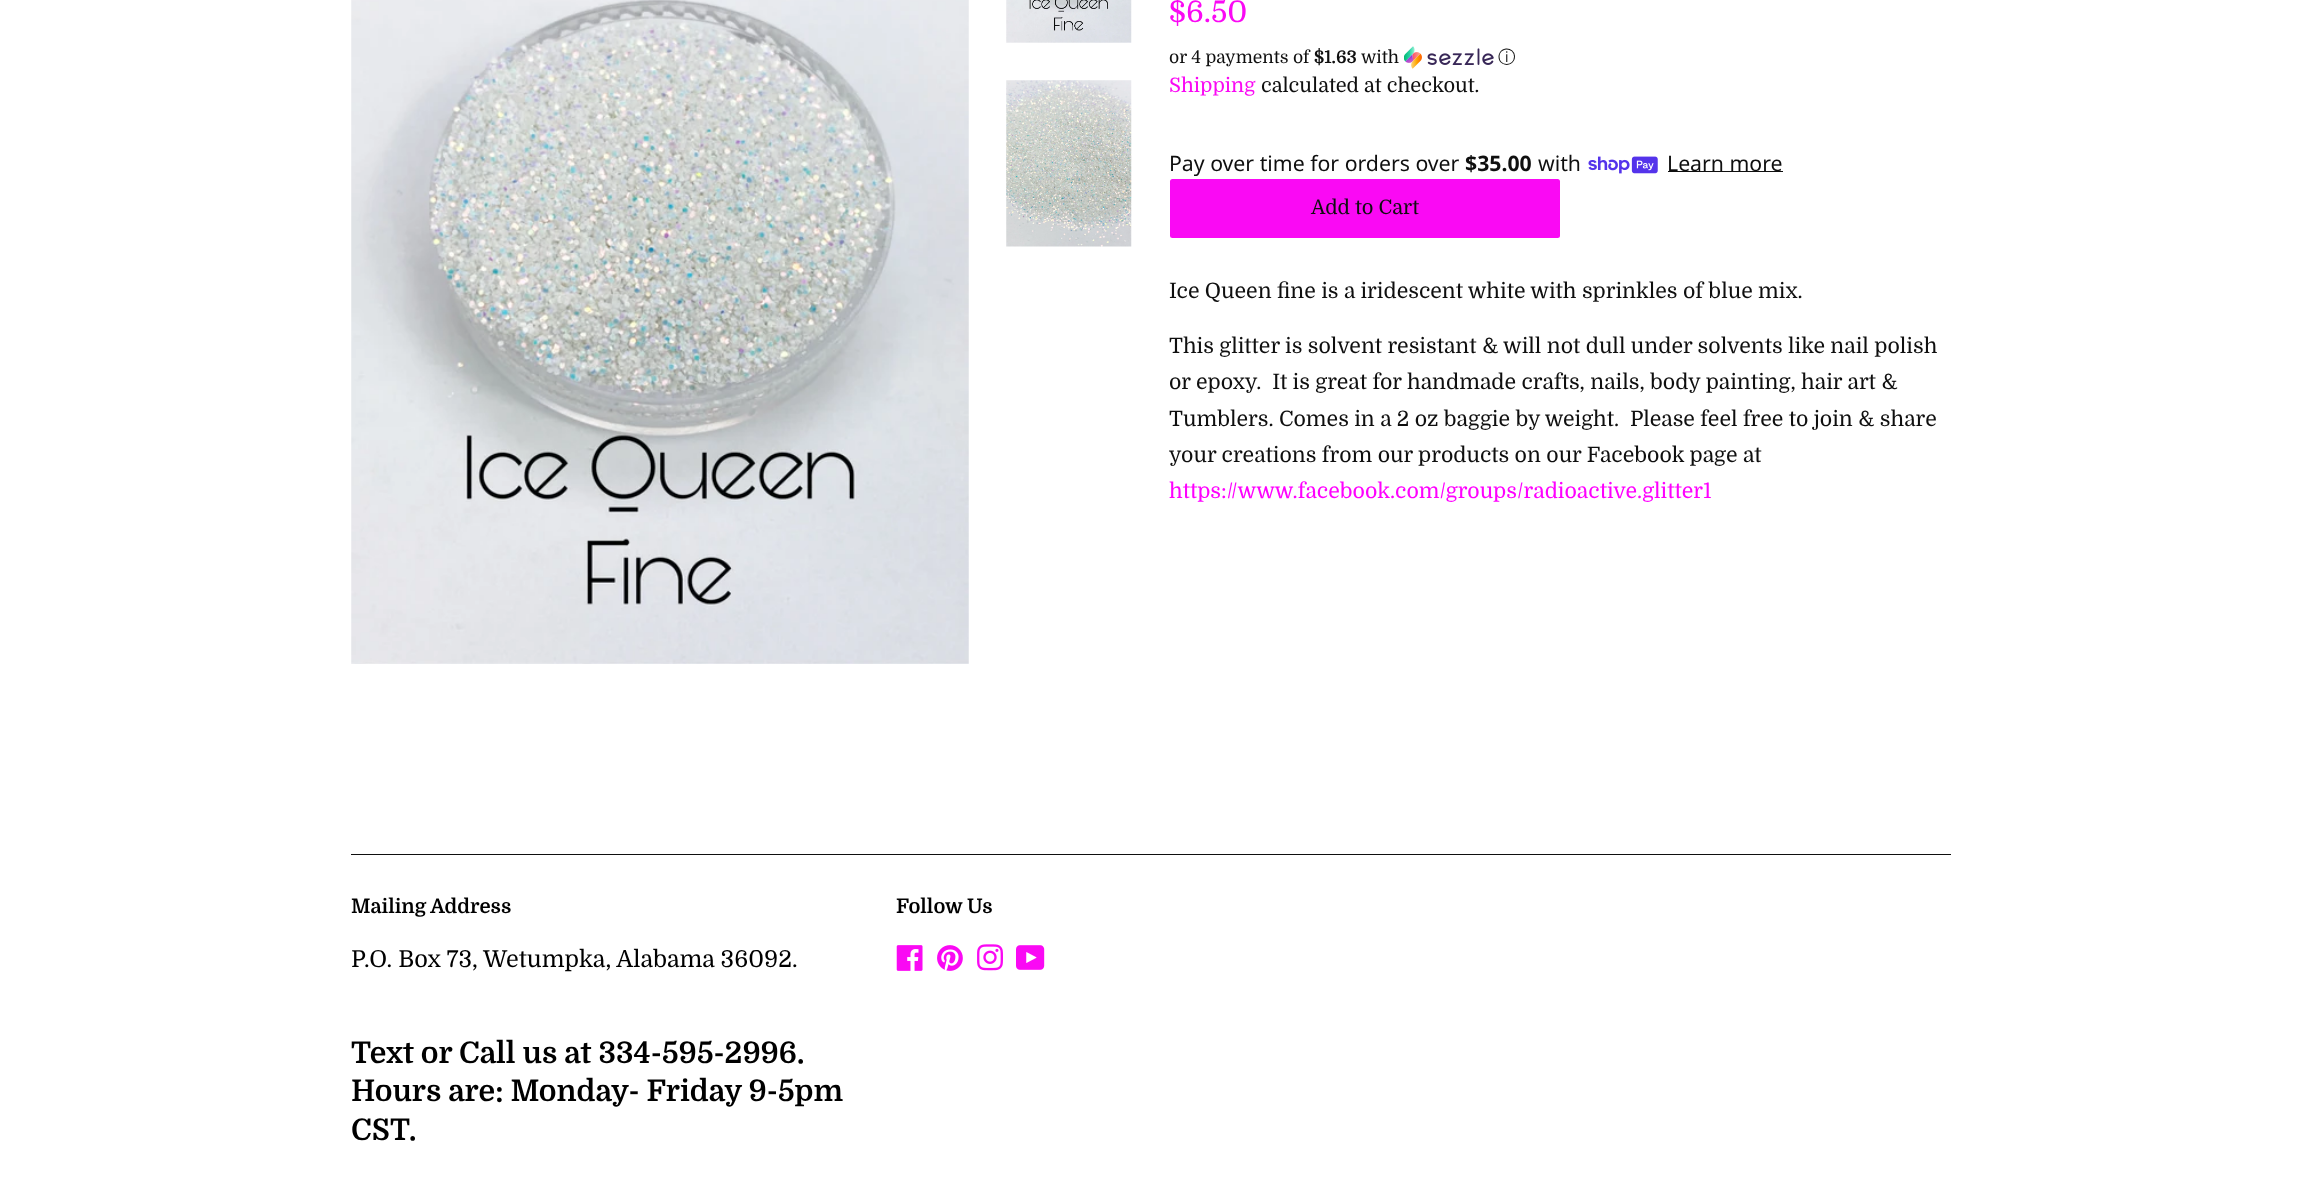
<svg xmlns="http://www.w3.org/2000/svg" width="2301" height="1180">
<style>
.a{font:29.75px Domine;fill:#fa09f4}
.b{font:17.5px Domine;fill:#0f0f0f}
.c{font:bold 17.5px Domine;fill:#0f0f0f}
.d{font:500 17.5px WenQuanYi Zen Hei;fill:#0f0f0f}
.e{font:20px Domine;fill:#fa09f4}
.f{font:20px Domine;fill:#0f0f0f}
.g{font:21.25px Noto Sans;fill:#0f0f0f}
.h{font:bold 21.25px Noto Sans;fill:#0f0f0f}
.i{font:21.25px Domine;fill:#0f0f0f}
.j{font:21.25px Domine;fill:#f0f}
.k{font:bold 20px Domine;fill:#000}
.l{font:23.4px Domine;fill:#000}
.m{font:bold 29.75px Domine;fill:#000}
</style>
<rect width="100%" height="100%" fill="#fff"/>
<image href="1.png" x="351" y="0" width="618" height="664"/>
<image href="2.png" x="1006" y="0" width="126" height="43"/>
<image href="3.png" x="1006" y="80" width="126" height="167"/>
<image href="4.png" x="1404" y="46" width="90" height="23"/>
<image href="5.png" x="1588" y="156" width="70" height="18"/>
<path fill="#0f0f0f" d="M1668 171h115v1H1668z"/>
<rect fill="#fa09f4" x="1170" y="179" width="390" height="59" rx="2.5"/>
<path fill="#0f0f0f" d="M351 854h1600v1H351z"/>
<image href="6.png" x="896" y="945" width="27" height="26"/>
<image href="7.png" x="937" y="945" width="26" height="26"/>
<image href="8.png" x="977" y="944" width="26" height="27"/>
<image href="9.png" x="1016" y="945" width="29" height="25"/>
<text class="a" x="1169" y="22">$6.50</text>
<text class="b" x="1169" y="63">or 4 payments of</text>
<text class="c" x="1314" y="63">$1.63</text>
<text class="b" x="1361" y="63">with</text>
<text class="d" x="1498" y="63">ⓘ</text>
<text class="e" x="1169" y="92">Shipping</text>
<text class="f" x="1261" y="92">calculated at checkout.</text>
<text class="g" x="1169" y="171">Pay over time for orders over</text>
<text class="h" x="1465" y="171">$35.00</text>
<text class="g" x="1538" y="171">with</text>
<text class="g" x="1667" y="171">Learn more</text>
<text class="f" x="1311" y="214">Add to Cart</text>
<text class="i" x="1169" y="298">Ice Queen fine is a iridescent white with sprinkles of blue mix.</text>
<text class="i" x="1169" y="353">This glitter is solvent resistant &amp; will not dull under solvents like nail polish</text>
<text class="i" xml:space="preserve" x="1169" y="389">or epoxy.  It is great for handmade crafts, nails, body painting, hair art &amp;</text>
<text class="i" xml:space="preserve" x="1169" y="426">Tumblers. Comes in a 2 oz baggie by weight.  Please feel free to join &amp; share</text>
<text class="i" x="1169" y="462">your creations from our products on our Facebook page at</text>
<text class="j" x="1169" y="498">https://www.facebook.com/groups/radioactive.glitter1</text>
<text class="k" x="351" y="913">Mailing Address</text>
<text class="l" x="351" y="967">P.O. Box 73, Wetumpka, Alabama 36092.</text>
<text class="m" x="351" y="1063">Text or Call us at 334-595-2996.</text>
<text class="m" x="351" y="1101">Hours are: Monday- Friday 9-5pm</text>
<text class="m" x="351" y="1140">CST.</text>
<text class="k" x="896" y="913">Follow Us</text>
</svg>
